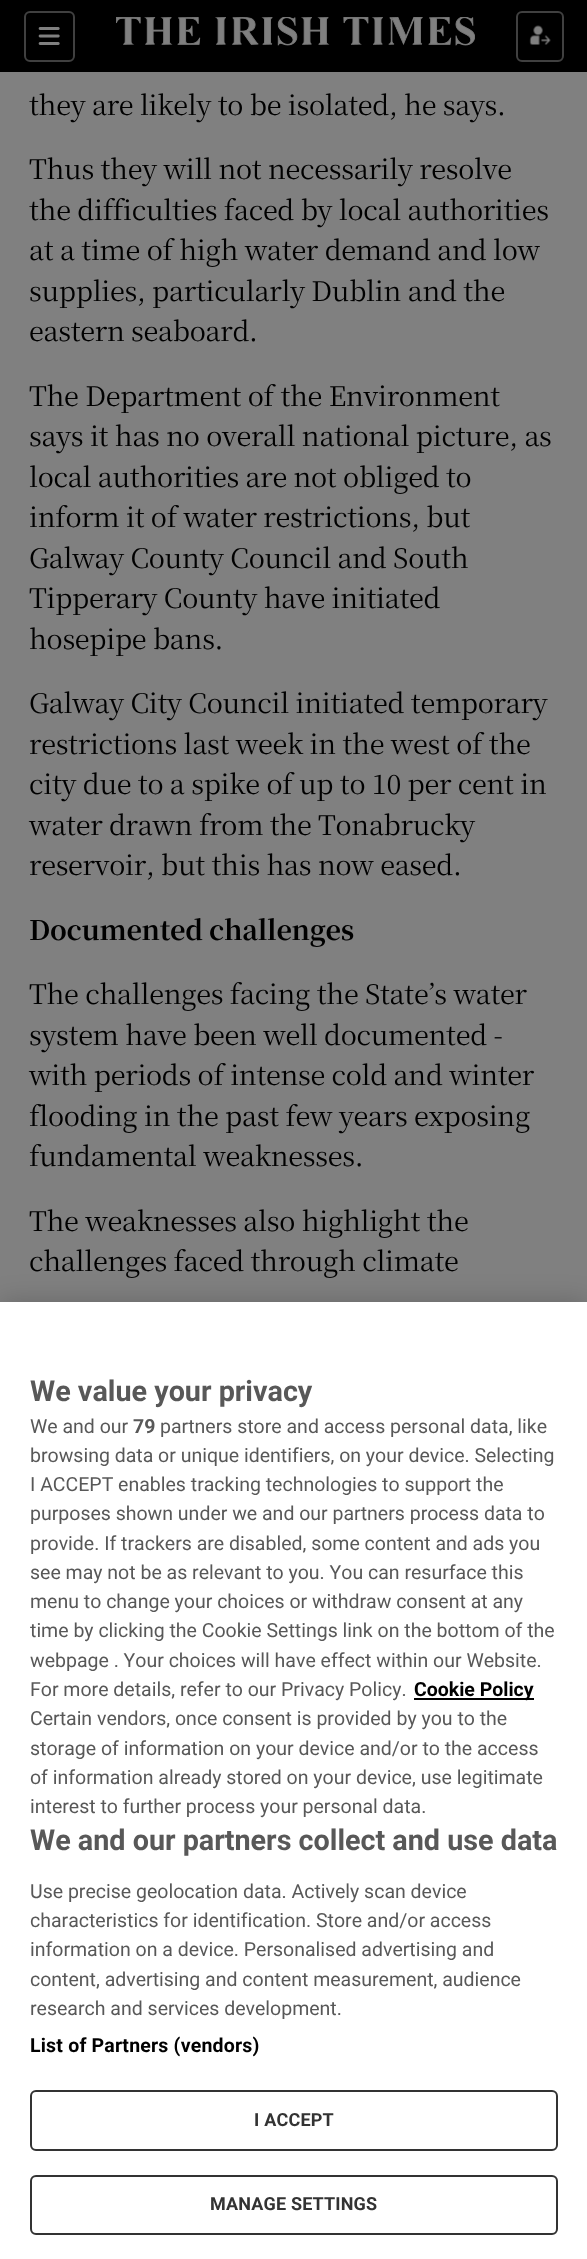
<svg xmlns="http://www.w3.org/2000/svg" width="587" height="2259">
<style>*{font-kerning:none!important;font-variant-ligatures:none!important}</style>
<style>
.a{font:200 27px Noto Serif JP;letter-spacing:-0.3px;fill:#000}
.b{font:200 27px 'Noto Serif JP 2';letter-spacing:-0.3px;fill:#000}
.c{font:bold 28.75px Roboto;fill:#585858}
.d{font:19.5px Roboto;fill:#585858}
.e{font:bold 19.5px Roboto;fill:#585858}
.f{font:bold 19.5px Roboto;fill:#000}
.g{font:bold 19.5px Roboto;letter-spacing:0.2px;fill:#000}
.h{font:bold 18px Roboto;letter-spacing:0.2px;fill:#333}
</style>
<rect width="100%" height="100%" fill="#808080"/>
<path fill="#000" d="M0 0h587v72H0z"/>
<rect fill="none" stroke="#404040" stroke-width="2" x="25" y="12" width="49" height="49" rx="5"/>
<image href="1.png" x="38" y="27" width="22" height="18"/>
<image href="2.png" x="116" y="17" width="359" height="29"/>
<rect fill="none" stroke="#404040" stroke-width="2" x="517" y="12" width="46" height="49" rx="5"/>
<image href="3.png" x="529" y="25" width="22" height="20"/>
<path fill="#00000033" filter="blur(13.5px)" d="M0 1302h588v957H0z"/>
<path fill="#fff" d="M0 1302h587v957H0z"/>
<path fill="#000" d="M414 1698h120v2H414z"/>
<rect fill="none" stroke="#333" stroke-width="2" x="31" y="2091" width="526" height="59" rx="5"/>
<rect fill="none" stroke="#333" stroke-width="2" x="31" y="2176" width="526" height="58" rx="5"/>
<text class="a" x="29" y="115">they are likely to be isolated, he says.</text>
<text class="a" x="29" y="179">Thus they will not necessarily resolve</text>
<text class="a" x="29" y="220">the difficulties faced by local authorities</text>
<text class="a" x="29" y="260">at a time of high water demand and low</text>
<text class="a" x="29" y="301">supplies, particularly Dublin and the</text>
<text class="a" x="29" y="341">eastern seaboard.</text>
<text class="a" x="29" y="406">The Department of the Environment</text>
<text class="a" x="29" y="446">says it has no overall national picture, as</text>
<text class="a" x="29" y="487">local authorities are not obliged to</text>
<text class="a" x="29" y="527">inform it of water restrictions, but</text>
<text class="a" x="29" y="568">Galway County Council and South</text>
<text class="a" x="29" y="608">Tipperary County have initiated</text>
<text class="a" x="29" y="649">hosepipe bans.</text>
<text class="a" x="29" y="713">Galway City Council initiated temporary</text>
<text class="a" x="29" y="754">restrictions last week in the west of the</text>
<text class="a" x="29" y="794">city due to a spike of up to 10 per cent in</text>
<text class="a" x="29" y="835">water drawn from the Tonabrucky</text>
<text class="a" x="29" y="875">reservoir, but this has now eased.</text>
<text class="b" x="29" y="940">Documented challenges</text>
<text class="a" x="29" y="1004">The challenges facing the State’s water</text>
<text class="a" x="29" y="1045">system have been well documented -</text>
<text class="a" x="29" y="1085">with periods of intense cold and winter</text>
<text class="a" x="29" y="1126">flooding in the past few years exposing</text>
<text class="a" x="29" y="1166">fundamental weaknesses.</text>
<text class="a" x="29" y="1231">The weaknesses also highlight the</text>
<text class="a" x="29" y="1271">challenges faced through climate</text>
<text class="c" x="30" y="1401">We value your privacy</text>
<text class="d" x="30" y="1433">We and our</text>
<text class="e" x="133" y="1433">79</text>
<text class="d" x="160" y="1433">partners store and access personal data, like</text>
<text class="d" x="30" y="1462">browsing data or unique identifiers, on your device. Selecting</text>
<text class="d" x="30" y="1491">I ACCEPT enables tracking technologies to support the</text>
<text class="d" x="30" y="1520">purposes shown under we and our partners process data to</text>
<text class="d" x="30" y="1550">provide. If trackers are disabled, some content and ads you</text>
<text class="d" x="30" y="1579">see may not be as relevant to you. You can resurface this</text>
<text class="d" x="30" y="1608">menu to change your choices or withdraw consent at any</text>
<text class="d" x="30" y="1637">time by clicking the Cookie Settings link on the bottom of the</text>
<text class="d" x="30" y="1667">webpage . Your choices will have effect within our Website.</text>
<text class="d" x="30" y="1696">For more details, refer to our Privacy Policy.</text>
<text class="f" x="414" y="1696">Cookie Policy</text>
<text class="d" x="30" y="1725">Certain vendors, once consent is provided by you to the</text>
<text class="d" x="30" y="1755">storage of information on your device and/or to the access</text>
<text class="d" x="30" y="1784">of information already stored on your device, use legitimate</text>
<text class="d" x="30" y="1813">interest to further process your personal data.</text>
<text class="c" x="30" y="1850">We and our partners collect and use data</text>
<text class="d" x="30" y="1898">Use precise geolocation data. Actively scan device</text>
<text class="d" x="30" y="1927">characteristics for identification. Store and/or access</text>
<text class="d" x="30" y="1956">information on a device. Personalised advertising and</text>
<text class="d" x="30" y="1986">content, advertising and content measurement, audience</text>
<text class="d" x="30" y="2015">research and services development.</text>
<text class="g" x="30" y="2052">List of Partners (vendors)</text>
<text class="h" x="254" y="2126">I ACCEPT</text>
<text class="h" x="210" y="2210">MANAGE SETTINGS</text>
</svg>
